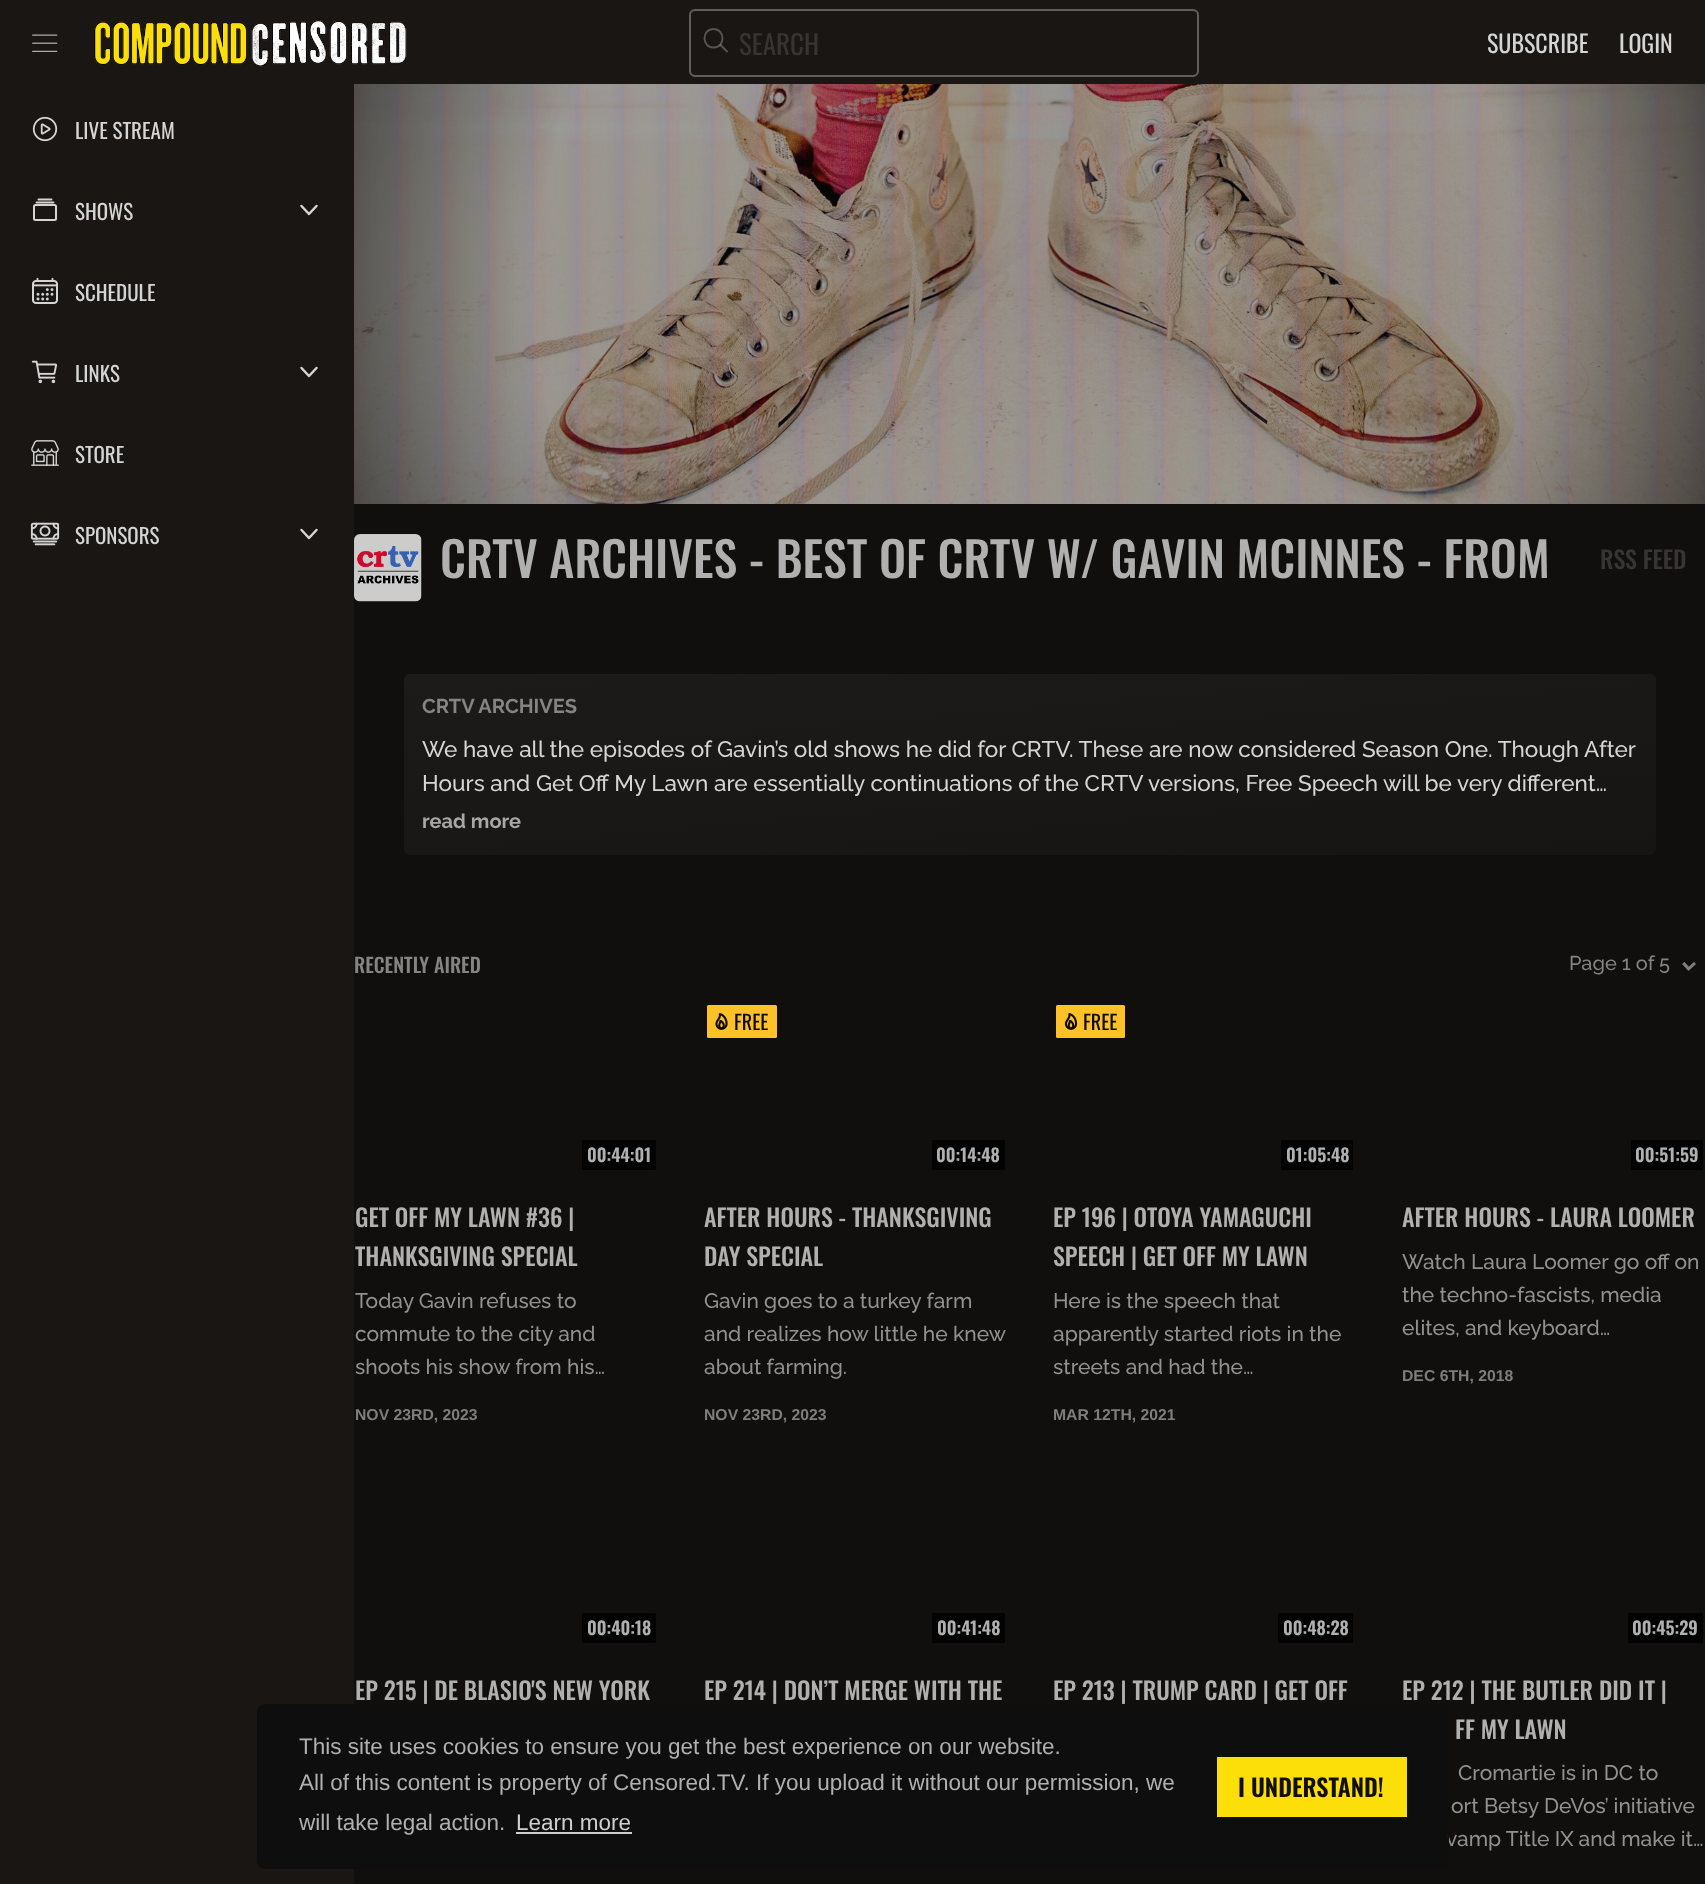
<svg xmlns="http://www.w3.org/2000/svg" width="1705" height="1884">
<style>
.a{font:27px Oswald;fill:#373433}
.b{font:24px Oswald;fill:#d5d5d5}
.c{font:21px Oswald;fill:#d5d5d5}
.d{font:500 48px Oswald;fill:#b0b0b0}
.e{font:500 24px Oswald;fill:#373433}
.f{font:bold 20px Raleway;fill:#848484}
.g{font:500 22.5px Raleway;fill:#d5d5d5}
.h{font:bold 20px Raleway;fill:#a7a7a6}
.i{font:500 20px Oswald;fill:#848484}
.j{font:500 20px Raleway;fill:#848484}
.k{font:600 18px Oswald;fill:#b0b0b0}
.l{font:500 24px Oswald;fill:#b0b0b0}
.m{font:500 21px Raleway;fill:#919191}
.n{font:bold 15.75px Liberation Sans;fill:#7e7e7d}
.o{font:20px Oswald;fill:#0d0a02}
.p{font:22.5px Liberation Sans;fill:#b0b0b0}
.q{font:22.5px Liberation Sans;fill:#cfcfcf}
.r{font:600 24px Oswald;fill:#110f0d}
</style>
<defs>
<radialGradient id="g1" gradientUnits="userSpaceOnUse" cx="1030" cy="295" r="708"><stop offset="0.7" stop-color="#000" stop-opacity="0"/><stop offset="1" stop-color="#000" stop-opacity="0.49"/></radialGradient>
<linearGradient id="g2" gradientUnits="userSpaceOnUse" x1="1017" y1="620" x2="1042" y2="909"><stop offset="0" stop-color="#1d1b19"/><stop offset="1" stop-color="#171513"/></linearGradient>
</defs>
<rect width="100%" height="100%" fill="#1a1614"/>
<image href="1.png" x="32" y="34" width="26" height="18"/>
<image href="2.png" x="94" y="20" width="313" height="47"/>
<rect fill="none" stroke="#615f5e" stroke-width="2" x="690" y="10" width="508" height="66" rx="5"/>
<path fill="none" stroke="#565452" stroke-width="1.9" d="M713.5 29c-12 0-12 18.5 0 18.5c12 0 12-18.5 0-18.5z"/>
<path fill="none" stroke="#b0b0b066" stroke-width="1.9" stroke-linecap="round" d="M720.5 45l6.5 6.5"/>
<image href="3.png" x="32" y="116" width="26" height="26"/>
<rect fill="none" stroke="#d5d5d5" stroke-width="2" x="34" y="205" width="22" height="15" rx="1.5"/>
<path fill="none" stroke="#d5d5d5" stroke-width="1.9" stroke-linecap="round" d="M38.5 199.5h13m-15 3h17"/>
<path fill="none" stroke="#d5d5d5" stroke-width="2.5" stroke-linecap="round" stroke-linejoin="round" d="M316.5 206l-7.5 8l-7.5-8"/>
<image href="4.png" x="32" y="277" width="26" height="27"/>
<image href="5.png" x="31" y="360" width="26" height="24"/>
<path fill="none" stroke="#d5d5d5" stroke-width="2.5" stroke-linecap="round" stroke-linejoin="round" d="M316.5 368l-7.5 8l-7.5-8"/>
<image href="6.png" x="31" y="440" width="28" height="26"/>
<image href="7.png" x="30" y="522" width="30" height="24"/>
<path fill="none" stroke="#d5d5d5" stroke-width="2.5" stroke-linecap="round" stroke-linejoin="round" d="M316.5 530l-7.5 8l-7.5-8"/>
<path fill="#110f0d" d="M354 504h1351v1380H354z"/>
<path fill="#100e0c" d="M354 84h1351v420H354z"/>
<image href="8.png" x="354" y="84" width="1351" height="420"/>
<image href="9.png" x="354" y="84" width="1351" height="420"/>
<path fill="url(#g1)" d="M354 84h1351v420H354z"/>
<image href="10.png" x="354" y="534" width="68" height="68"/>
<rect fill="url(#g2)" x="404" y="674" width="1252" height="181" rx="6"/>
<image href="11.png" x="1682" y="962" width="14" height="9"/>
<rect fill="#030303" x="582" y="1140" width="74" height="30" rx="1.5"/>
<rect fill="#fec128" x="707" y="1005" width="70" height="33" rx="1.5"/>
<image href="12.png" x="715" y="1013" width="13" height="17"/>
<rect fill="#030303" x="932" y="1140" width="73" height="30" rx="1.5"/>
<rect fill="#fec128" x="1056" y="1005" width="69" height="33" rx="1.5"/>
<image href="13.png" x="1064" y="1013" width="14" height="17"/>
<rect fill="#030303" x="1281" y="1140" width="72" height="30" rx="1.5"/>
<rect fill="#030303" x="1631" y="1140" width="72" height="30" rx="1.5"/>
<rect fill="#030303" x="582" y="1613" width="74" height="30" rx="1.5"/>
<rect fill="#030303" x="932" y="1613" width="73" height="30" rx="1.5"/>
<rect fill="#030303" x="1278" y="1613" width="75" height="30" rx="1.5"/>
<rect fill="#030303" x="1628" y="1613" width="75" height="30" rx="1.5"/>
<text class="a" x="739" y="55">SEARCH</text>
<text class="b" x="1487" y="53">SUBSCRIBE</text>
<text class="b" x="1619" y="53">LOGIN</text>
<text class="c" x="75" y="139">LIVE STREAM</text>
<text class="c" x="75" y="220">SHOWS</text>
<text class="c" x="75" y="301">SCHEDULE</text>
<text class="c" x="75" y="382">LINKS</text>
<text class="c" x="75" y="463">STORE</text>
<text class="c" x="75" y="544">SPONSORS</text>
<text class="d" x="440" y="578">CRTV ARCHIVES - BEST OF CRTV W/ GAVIN MCINNES - FROM</text>
<text class="e" x="1600" y="569">RSS FEED</text>
<text class="f" x="422" y="713">CRTV ARCHIVES</text>
<text class="g" x="422" y="757">We have all the episodes of Gavin’s old shows he did for CRTV. These are now considered Season One. Though After</text>
<text class="g" x="422" y="791">Hours and Get Off My Lawn are essentially continuations of the CRTV versions, Free Speech will be very different…</text>
<text class="h" x="422" y="828">read more</text>
<text class="i" x="354" y="973">RECENTLY AIRED</text>
<text class="j" x="1569" y="970">Page 1 of 5</text>
<text class="k" x="587" y="1162">00:44:01</text>
<text class="l" x="355" y="1227">GET OFF MY LAWN #36 |</text>
<text class="l" x="355" y="1266">THANKSGIVING SPECIAL</text>
<text class="m" x="355" y="1308">Today Gavin refuses to</text>
<text class="m" x="355" y="1341">commute to the city and</text>
<text class="m" x="355" y="1374">shoots his show from his…</text>
<text class="n" x="355" y="1420">NOV 23RD, 2023</text>
<text class="o" x="734" y="1030">FREE</text>
<text class="k" x="936" y="1162">00:14:48</text>
<text class="l" x="704" y="1227">AFTER HOURS - THANKSGIVING</text>
<text class="l" x="704" y="1266">DAY SPECIAL</text>
<text class="m" x="704" y="1308">Gavin goes to a turkey farm</text>
<text class="m" x="704" y="1341">and realizes how little he knew</text>
<text class="m" x="704" y="1374">about farming.</text>
<text class="n" x="704" y="1420">NOV 23RD, 2023</text>
<text class="o" x="1083" y="1030">FREE</text>
<text class="k" x="1286" y="1162">01:05:48</text>
<text class="l" x="1053" y="1227">EP 196 | OTOYA YAMAGUCHI</text>
<text class="l" x="1053" y="1266">SPEECH | GET OFF MY LAWN</text>
<text class="m" x="1053" y="1308">Here is the speech that</text>
<text class="m" x="1053" y="1341">apparently started riots in the</text>
<text class="m" x="1053" y="1374">streets and had the…</text>
<text class="n" x="1053" y="1420">MAR 12TH, 2021</text>
<text class="k" x="1635" y="1162">00:51:59</text>
<text class="l" x="1402" y="1227">AFTER HOURS - LAURA LOOMER</text>
<text class="m" x="1402" y="1269">Watch Laura Loomer go off on</text>
<text class="m" x="1402" y="1302">the techno-fascists, media</text>
<text class="m" x="1402" y="1335">elites, and keyboard…</text>
<text class="n" x="1402" y="1381">DEC 6TH, 2018</text>
<text class="k" x="587" y="1635">00:40:18</text>
<text class="l" x="355" y="1700">EP 215 | DE BLASIO'S NEW YORK</text>
<text class="k" x="937" y="1635">00:41:48</text>
<text class="l" x="704" y="1700">EP 214 | DON’T MERGE WITH THE</text>
<text class="k" x="1283" y="1635">00:48:28</text>
<text class="l" x="1053" y="1700">EP 213 | TRUMP CARD | GET OFF</text>
<text class="k" x="1632" y="1635">00:45:29</text>
<text class="l" x="1402" y="1700">EP 212 | THE BUTLER DID IT |</text>
<text class="l" x="1455" y="1739">FF MY LAWN</text>
<text class="m" x="1458" y="1780">Cromartie is in DC to</text>
<text class="m" x="1451" y="1813">ort Betsy DeVos’ initiative</text>
<text class="m" x="1446" y="1846">vamp Title IX and make it…</text>
<rect fill="#0f0f0ff5" x="257" y="1704" width="1192" height="165" rx="8"/>
<text class="p" x="299" y="1754">This site uses cookies to ensure you get the best experience on our website.</text>
<text class="p" x="299" y="1790">All of this content is property of Censored.TV. If you upload it without our permission, we</text>
<text class="p" x="299" y="1830">will take legal action.</text>
<text class="q" x="516" y="1830">Learn more</text>
<path fill="#ffffffcc" d="M516 1832h116v2H516z"/>
<path fill="#fcdf08" d="M1217 1757h190v60H1217z"/>
<text class="r" x="1238" y="1797">I UNDERSTAND!</text>
</svg>
